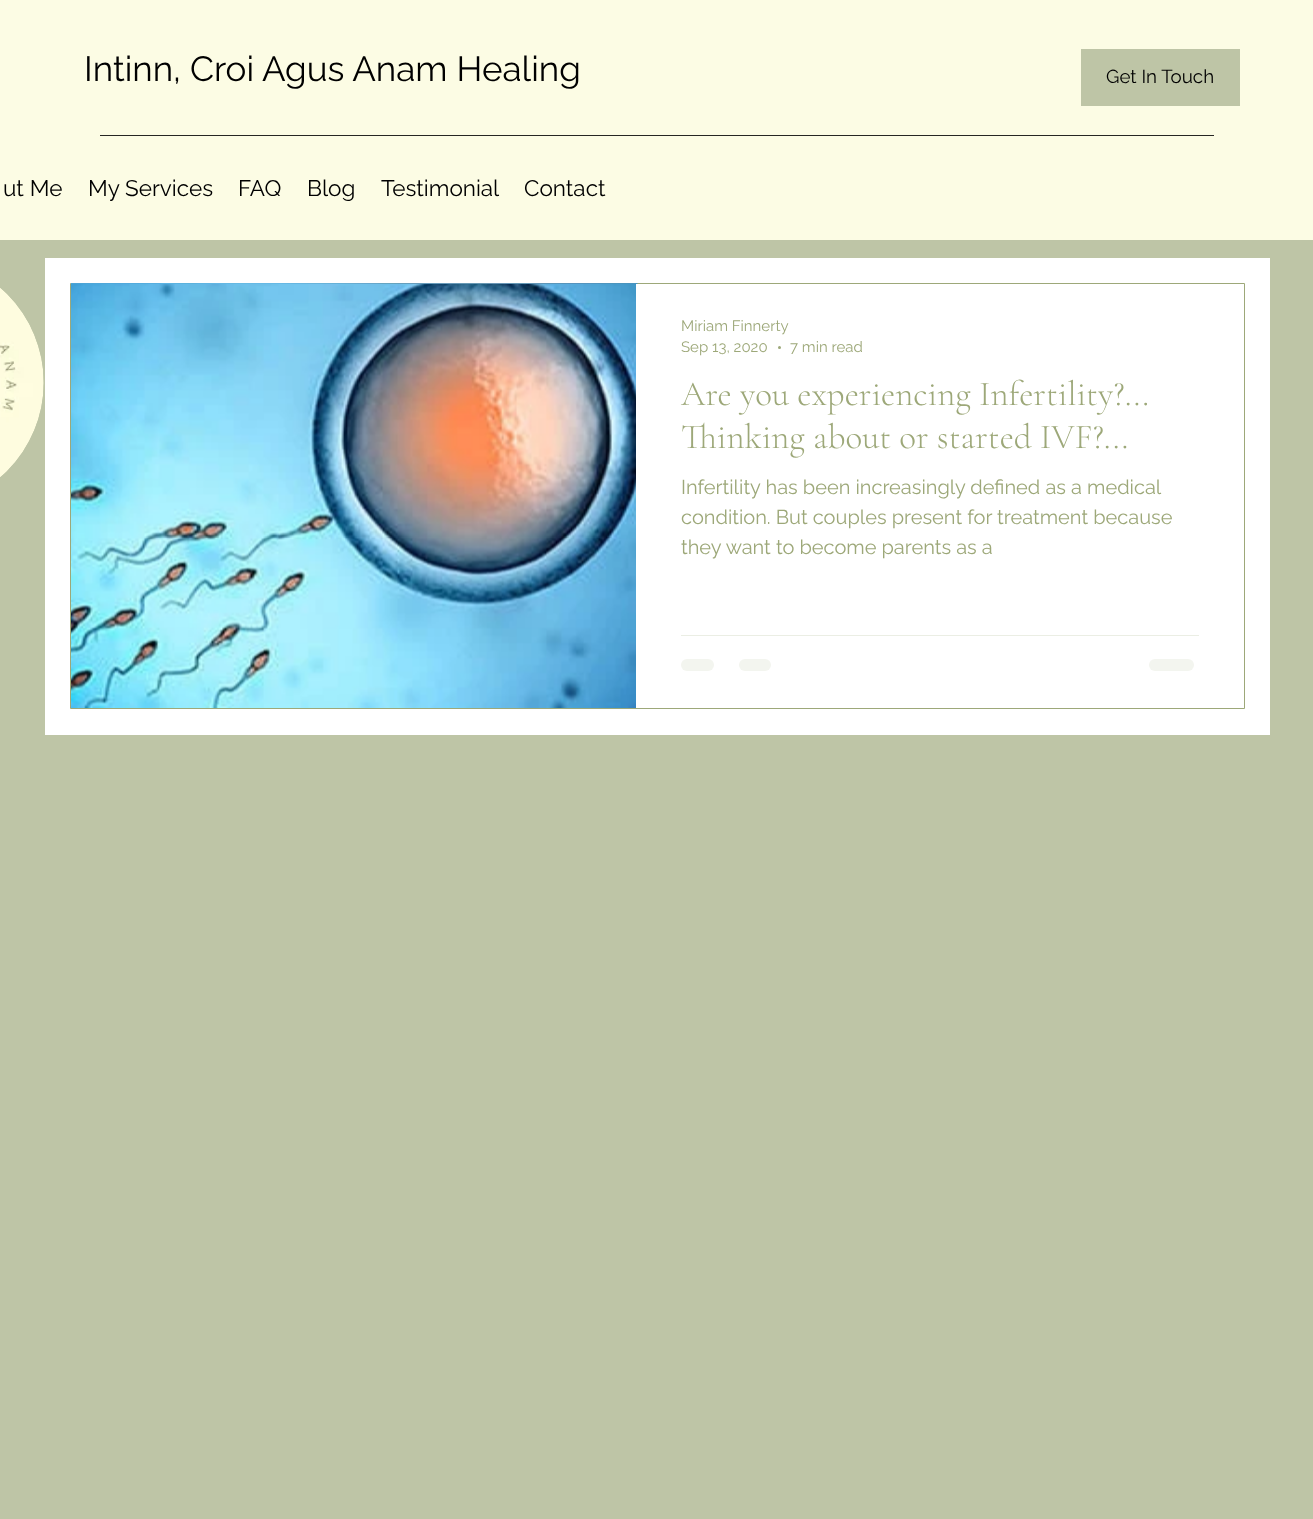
<svg xmlns="http://www.w3.org/2000/svg" width="1313" height="1519">
<style>
.a{font:35px Raleway;fill:#000}
.b{font:18.75px Raleway;fill:#000}
.c{font:22.5px Raleway;fill:#000}
.d{font:15px Raleway;fill:#9da879}
.e{font:300 35px Cormorant Garamond;fill:#9da879}
.f{font:20px Raleway;fill:#9da879}
</style>
<rect width="100%" height="100%" fill="#bec5a6"/>
<path fill="#fcfce4" d="M0 0h1313v240H0z"/>
<path fill="#bec5a6" d="M1081 49h159v57H1081z"/>
<path fill="#262622" d="M100 135h1114v1H100z"/>
<image href="1.png" x="0" y="288" width="44" height="189"/>
<path fill="#fff" d="M45 258h1225v477H45z"/>
<path fill="none" stroke="#9da879" d="M70.5 283.5h1174v425H70.5z"/>
<image href="2.png" x="71" y="283" width="567" height="1"/>
<image href="3.png" x="71" y="284" width="565" height="424"/>
<circle fill="#9da879" cx="779.5" cy="347.5" r="1.5"/>
<path fill="#ebeee4" d="M681 635h518v1H681z"/>
<rect fill="#f3f5ef" x="681" y="659" width="33" height="12" rx="6"/>
<rect fill="#f3f5ef" x="739" y="659" width="32" height="12" rx="6"/>
<rect fill="#f3f5ef" x="1149" y="659" width="45" height="12" rx="6"/>
<text class="a" x="84" y="81">Intinn, Croi Agus Anam Healing</text>
<text class="b" x="1106" y="83">Get In Touch</text>
<text class="c" x="3" y="196">ut Me</text>
<text class="c" x="88" y="196">My Services</text>
<text class="c" x="238" y="196">FAQ</text>
<text class="c" x="307" y="196">Blog</text>
<text class="c" x="381" y="196">Testimonial</text>
<text class="c" x="524" y="196">Contact</text>
<text class="d" x="681" y="331">Miriam Finnerty</text>
<text class="d" x="681" y="352">Sep 13, 2020</text>
<text class="d" x="790" y="352">7 min read</text>
<text class="e" x="681" y="405">Are you experiencing Infertility?...</text>
<text class="e" x="681" y="448">Thinking about or started IVF?...</text>
<text class="f" x="681" y="494">Infertility has been increasingly defined as a medical</text>
<text class="f" x="681" y="524">condition. But couples present for treatment because</text>
<text class="f" x="681" y="554">they want to become parents as a</text>
</svg>
